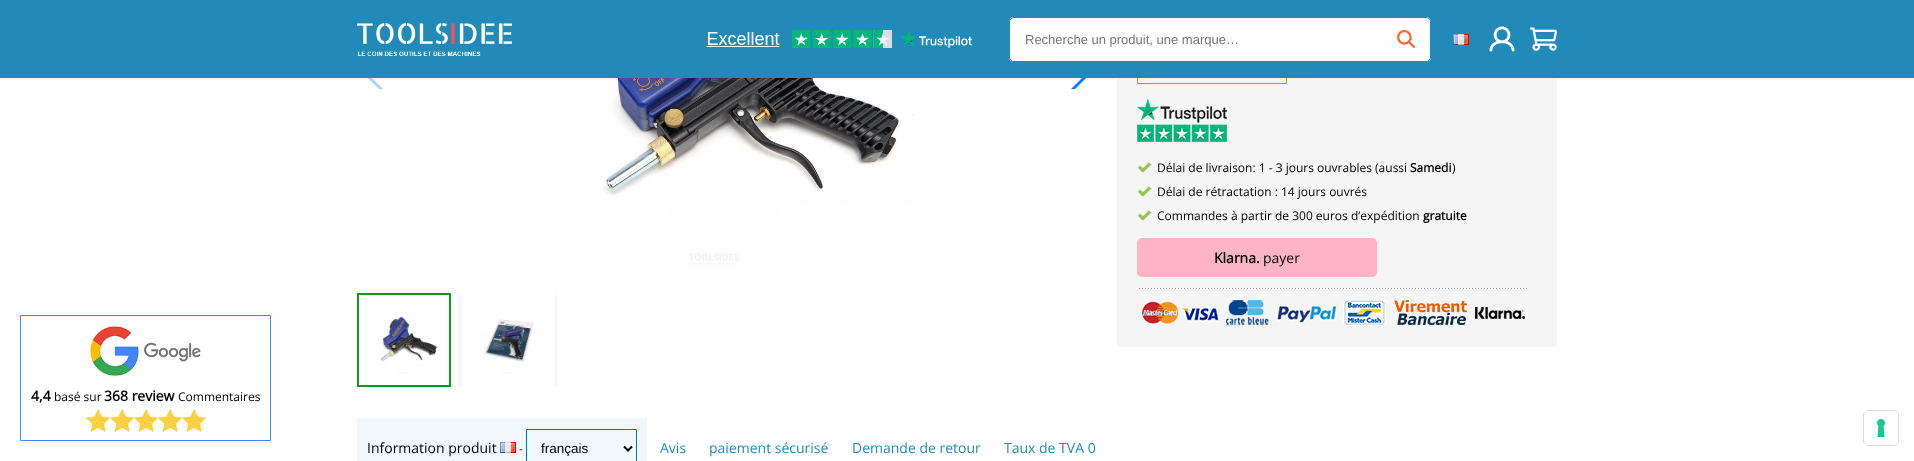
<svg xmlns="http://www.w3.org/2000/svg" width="1914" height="461">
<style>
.a{font:13px Liberation Sans;fill:#757575}
.b{font:bold 14px Open Sans;fill:#000}
.c{font:12px Open Sans;fill:#000}
.d{font:bold 12px Open Sans;fill:#000}
.e{font:14px Open Sans;fill:#000}
.f{font:13.5px Liberation Sans;fill:#000}
.g{font:14px Open Sans;fill:#218ab9}
</style>
<defs>
<clipPath id="clip1"><path d="M367 65h27v24H367z"/></clipPath>
<clipPath id="clip2"><path d="M1060 65h27v24H1060z"/></clipPath>
<clipPath id="clip3"><path d="M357 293h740v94H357z"/></clipPath>
<clipPath id="clip4"><path d="M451 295h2v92H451z"/></clipPath>
<clipPath id="clip5"><path d="M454 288h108v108h-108zm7 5h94v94h-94z" clip-rule="evenodd"/></clipPath>
</defs>
<rect width="100%" height="100%" fill="#fff"/>
<g clip-path="url(#clip1)">
<path fill="#a6d0ff" d="M367 77l22-22l2 2l-20 20l20 20l-2 2z"/>
</g>
<g clip-path="url(#clip2)">
<path fill="#007aff" d="M1087 77l-22 22l-2-2l20-20l-20-20l2-2z"/>
</g>
<rect fill="#f5f5f5" x="1117" y="-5" width="440" height="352" rx="5"/>
<path fill="none" stroke="#78be19" d="M1137.5 55.5h149v28H1137.5z"/>
<path fill="#218ab9" d="M0 0h1914v78H0z"/>
<image href="1.png" x="357" y="23" width="155" height="33"/>
<image href="2.png" x="706" y="30" width="266" height="18"/>
<rect fill="#fff" x="1009" y="17" width="422" height="45" rx="5"/>
<image href="3.png" x="1397" y="30" width="18" height="18"/>
<rect fill="none" stroke="#218ab9" x="1009.5" y="17.5" width="421" height="44" rx="4.5"/>
<image href="4.png" x="1453" y="34" width="16" height="11"/>
<image href="5.png" x="1489" y="26" width="26" height="26"/>
<image href="6.png" x="1530" y="27" width="27" height="24"/>
<path fill="none" stroke="#4286f5" d="M20.5 315.5h250v125H20.5z"/>
<image href="7.png" x="90" y="326" width="111" height="50"/>
<image href="8.png" x="86" y="409" width="24" height="23"/>
<image href="8.png" x="110" y="409" width="24" height="23"/>
<image href="8.png" x="134" y="409" width="24" height="23"/>
<image href="8.png" x="158" y="409" width="24" height="23"/>
<image href="8.png" x="182" y="409" width="24" height="23"/>
<image href="9.png" x="601" y="78" width="313" height="187"/>
<g clip-path="url(#clip3)">
<g clip-path="url(#clip4)">
<path fill="#0000001a" filter="blur(2px)" d="M357 295h94v94H357z"/>
</g>
</g>
<path fill="none" stroke="#109622" stroke-width="2" d="M358 294h92v92H358z"/>
<image href="10.png" x="380" y="316" width="57" height="58"/>
<g clip-path="url(#clip3)">
<g clip-path="url(#clip5)">
<path fill="#0000001a" filter="blur(2px)" d="M461 295h94v94H461z"/>
</g>
</g>
<image href="11.png" x="484" y="319" width="50" height="55"/>
<image href="12.png" x="1137" y="99" width="90" height="43"/>
<image href="13.png" x="1137" y="162" width="15" height="11"/>
<image href="13.png" x="1137" y="186" width="15" height="11"/>
<image href="13.png" x="1137" y="210" width="15" height="11"/>
<rect fill="#ffb3c7" x="1137" y="238" width="240" height="39" rx="5"/>
<image href="14.png" x="1139" y="288" width="388" height="38"/>
<path fill="#f2f7fc" d="M357 418h290v43H357z"/>
<image href="4.png" x="500" y="442" width="16" height="11"/>
<path fill="none" stroke="#037594" d="M526.5 429.5h110v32H526.5z"/>
<path fill="none" stroke="#000" stroke-width="2" d="M624 446.5l4 4l4-4"/>
<rect fill="none" stroke="#d9d9d9" x="1863.5" y="410.5" width="35" height="35" rx="4.5"/>
<rect fill="#fff" x="1864" y="411" width="34" height="34" rx="4"/>
<image href="15.png" x="1877" y="419" width="8" height="18"/>
<text class="a" x="1025" y="44">Recherche un produit, une marque…</text>
<text class="b" x="31" y="401">4,4</text>
<text class="c" x="54" y="401">basé sur</text>
<text class="b" x="104" y="401">368 review</text>
<text class="c" x="178" y="401">Commentaires</text>
<text class="c" x="1157" y="172">Délai de livraison: 1 - 3 jours ouvrables (aussi</text>
<text class="d" x="1410" y="172">Samedi</text>
<text class="c" x="1452" y="172">)</text>
<text class="c" x="1157" y="196">Délai de rétractation : 14 jours ouvrés</text>
<text class="c" x="1157" y="220">Commandes à partir de 300 euros d’expédition</text>
<text class="d" x="1423" y="220">gratuite</text>
<text class="b" x="1214" y="263">Klarna.</text>
<text class="e" x="1263" y="263">payer</text>
<text class="e" x="367" y="453">Information produit</text>
<text class="c" x="519" y="453">-</text>
<text class="f" x="541" y="453">français</text>
<text class="g" x="660" y="453">Avis</text>
<text class="g" x="709" y="453">paiement sécurisé</text>
<text class="g" x="852" y="453">Demande de retour</text>
<text class="g" x="1004" y="453">Taux de TVA 0</text>
</svg>
